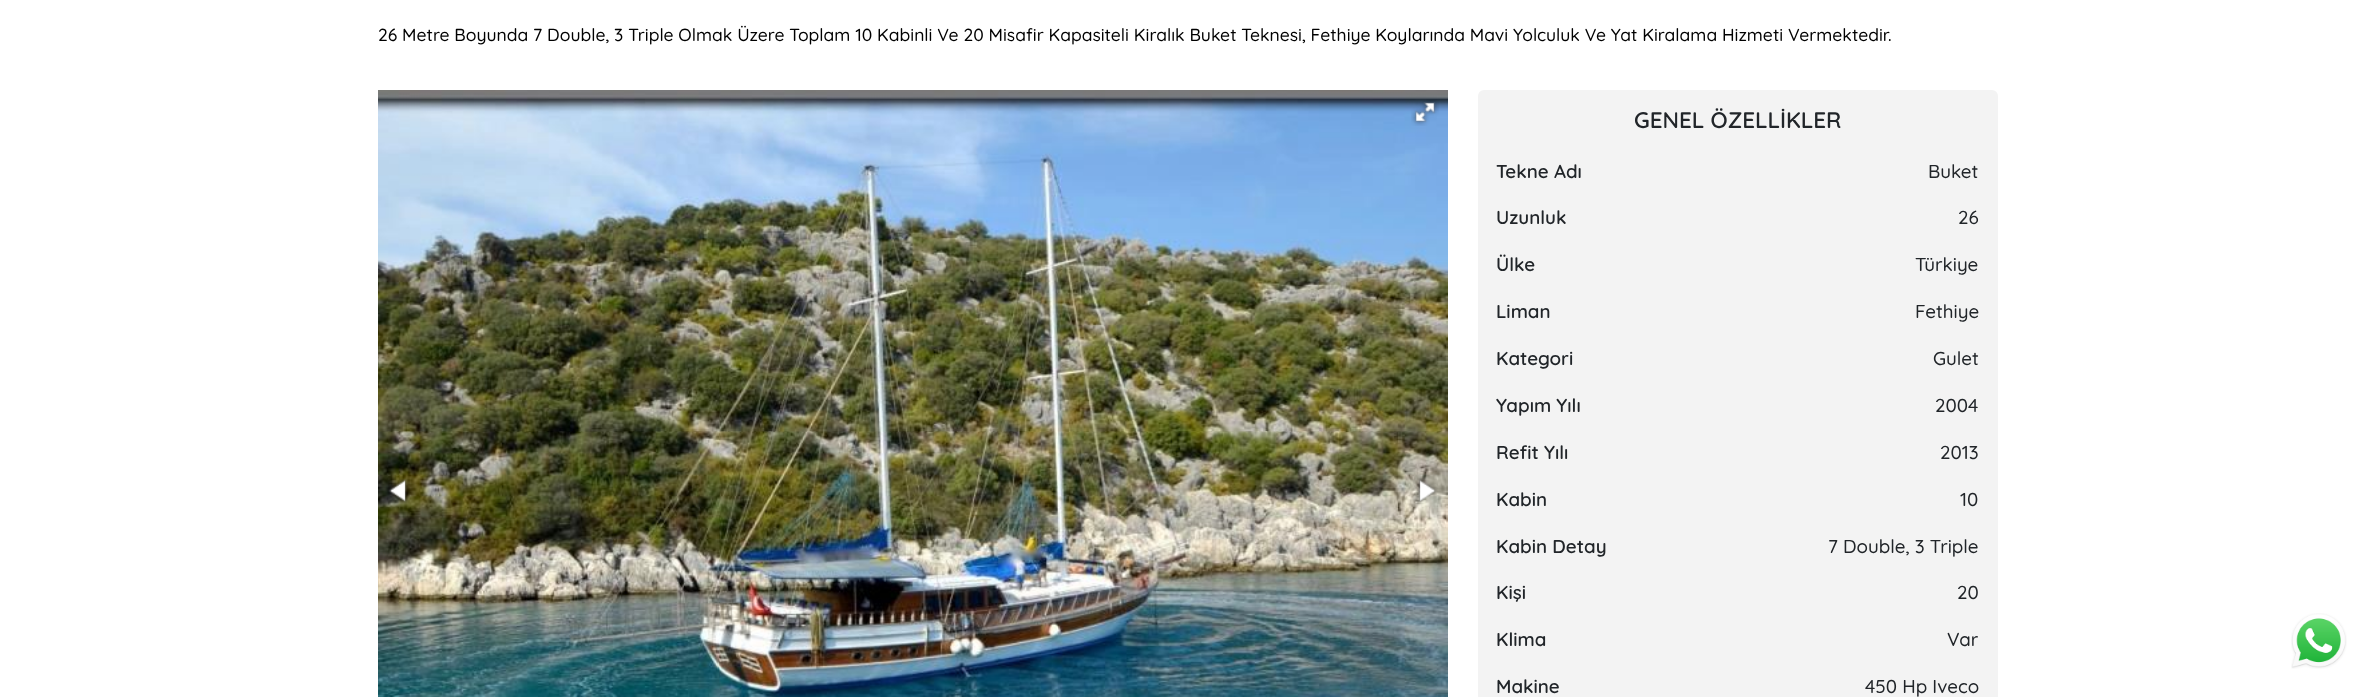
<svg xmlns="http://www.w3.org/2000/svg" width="2374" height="697">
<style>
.a{font:500 17.5px Quicksand;fill:#000}
.b{font:600 22.5px Quicksand;fill:#212529}
.c{font:600 18.75px Quicksand;fill:#212529}
.d{font:500 18.75px Quicksand;fill:#212529}
</style>
<rect width="100%" height="100%" fill="#fff"/>
<image href="1.png" x="378" y="90" width="1070" height="607"/>
<image href="2.png" x="1411" y="100" width="28" height="26"/>
<image href="3.png" x="388" y="479" width="22" height="25"/>
<image href="4.png" x="1414" y="478" width="24" height="26"/>
<rect fill="#f3f3f3" x="1478" y="90" width="520" height="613" rx="6"/>
<image href="5.png" x="2291" y="613" width="56" height="56"/>
<text class="a" x="378" y="41">26 Metre Boyunda 7 Double, 3 Triple Olmak Üzere Toplam 10 Kabinli Ve 20 Misafir Kapasiteli Kiralık Buket Teknesi, Fethiye Koylarında Mavi Yolculuk Ve Yat Kiralama Hizmeti Vermektedir.</text>
<text class="b" x="1634" y="128">GENEL ÖZELLİKLER</text>
<text class="c" x="1496" y="178">Tekne Adı</text>
<text class="d" x="1928" y="178">Buket</text>
<text class="c" x="1496" y="224">Uzunluk</text>
<text class="d" x="1958" y="224">26</text>
<text class="c" x="1496" y="271">Ülke</text>
<text class="d" x="1915" y="271">Türkiye</text>
<text class="c" x="1496" y="318">Liman</text>
<text class="d" x="1915" y="318">Fethiye</text>
<text class="c" x="1496" y="365">Kategori</text>
<text class="d" x="1933" y="365">Gulet</text>
<text class="c" x="1496" y="412">Yapım Yılı</text>
<text class="d" x="1935" y="412">2004</text>
<text class="c" x="1496" y="459">Refit Yılı</text>
<text class="d" x="1940" y="459">2013</text>
<text class="c" x="1496" y="506">Kabin</text>
<text class="d" x="1960" y="506">10</text>
<text class="c" x="1496" y="553">Kabin Detay</text>
<text class="d" x="1828" y="553">7 Double, 3 Triple</text>
<text class="c" x="1496" y="599">Kişi</text>
<text class="d" x="1957" y="599">20</text>
<text class="c" x="1496" y="646">Klima</text>
<text class="d" x="1947" y="646">Var</text>
<text class="c" x="1496" y="693">Makine</text>
<text class="d" x="1865" y="693">450 Hp Iveco</text>
</svg>
